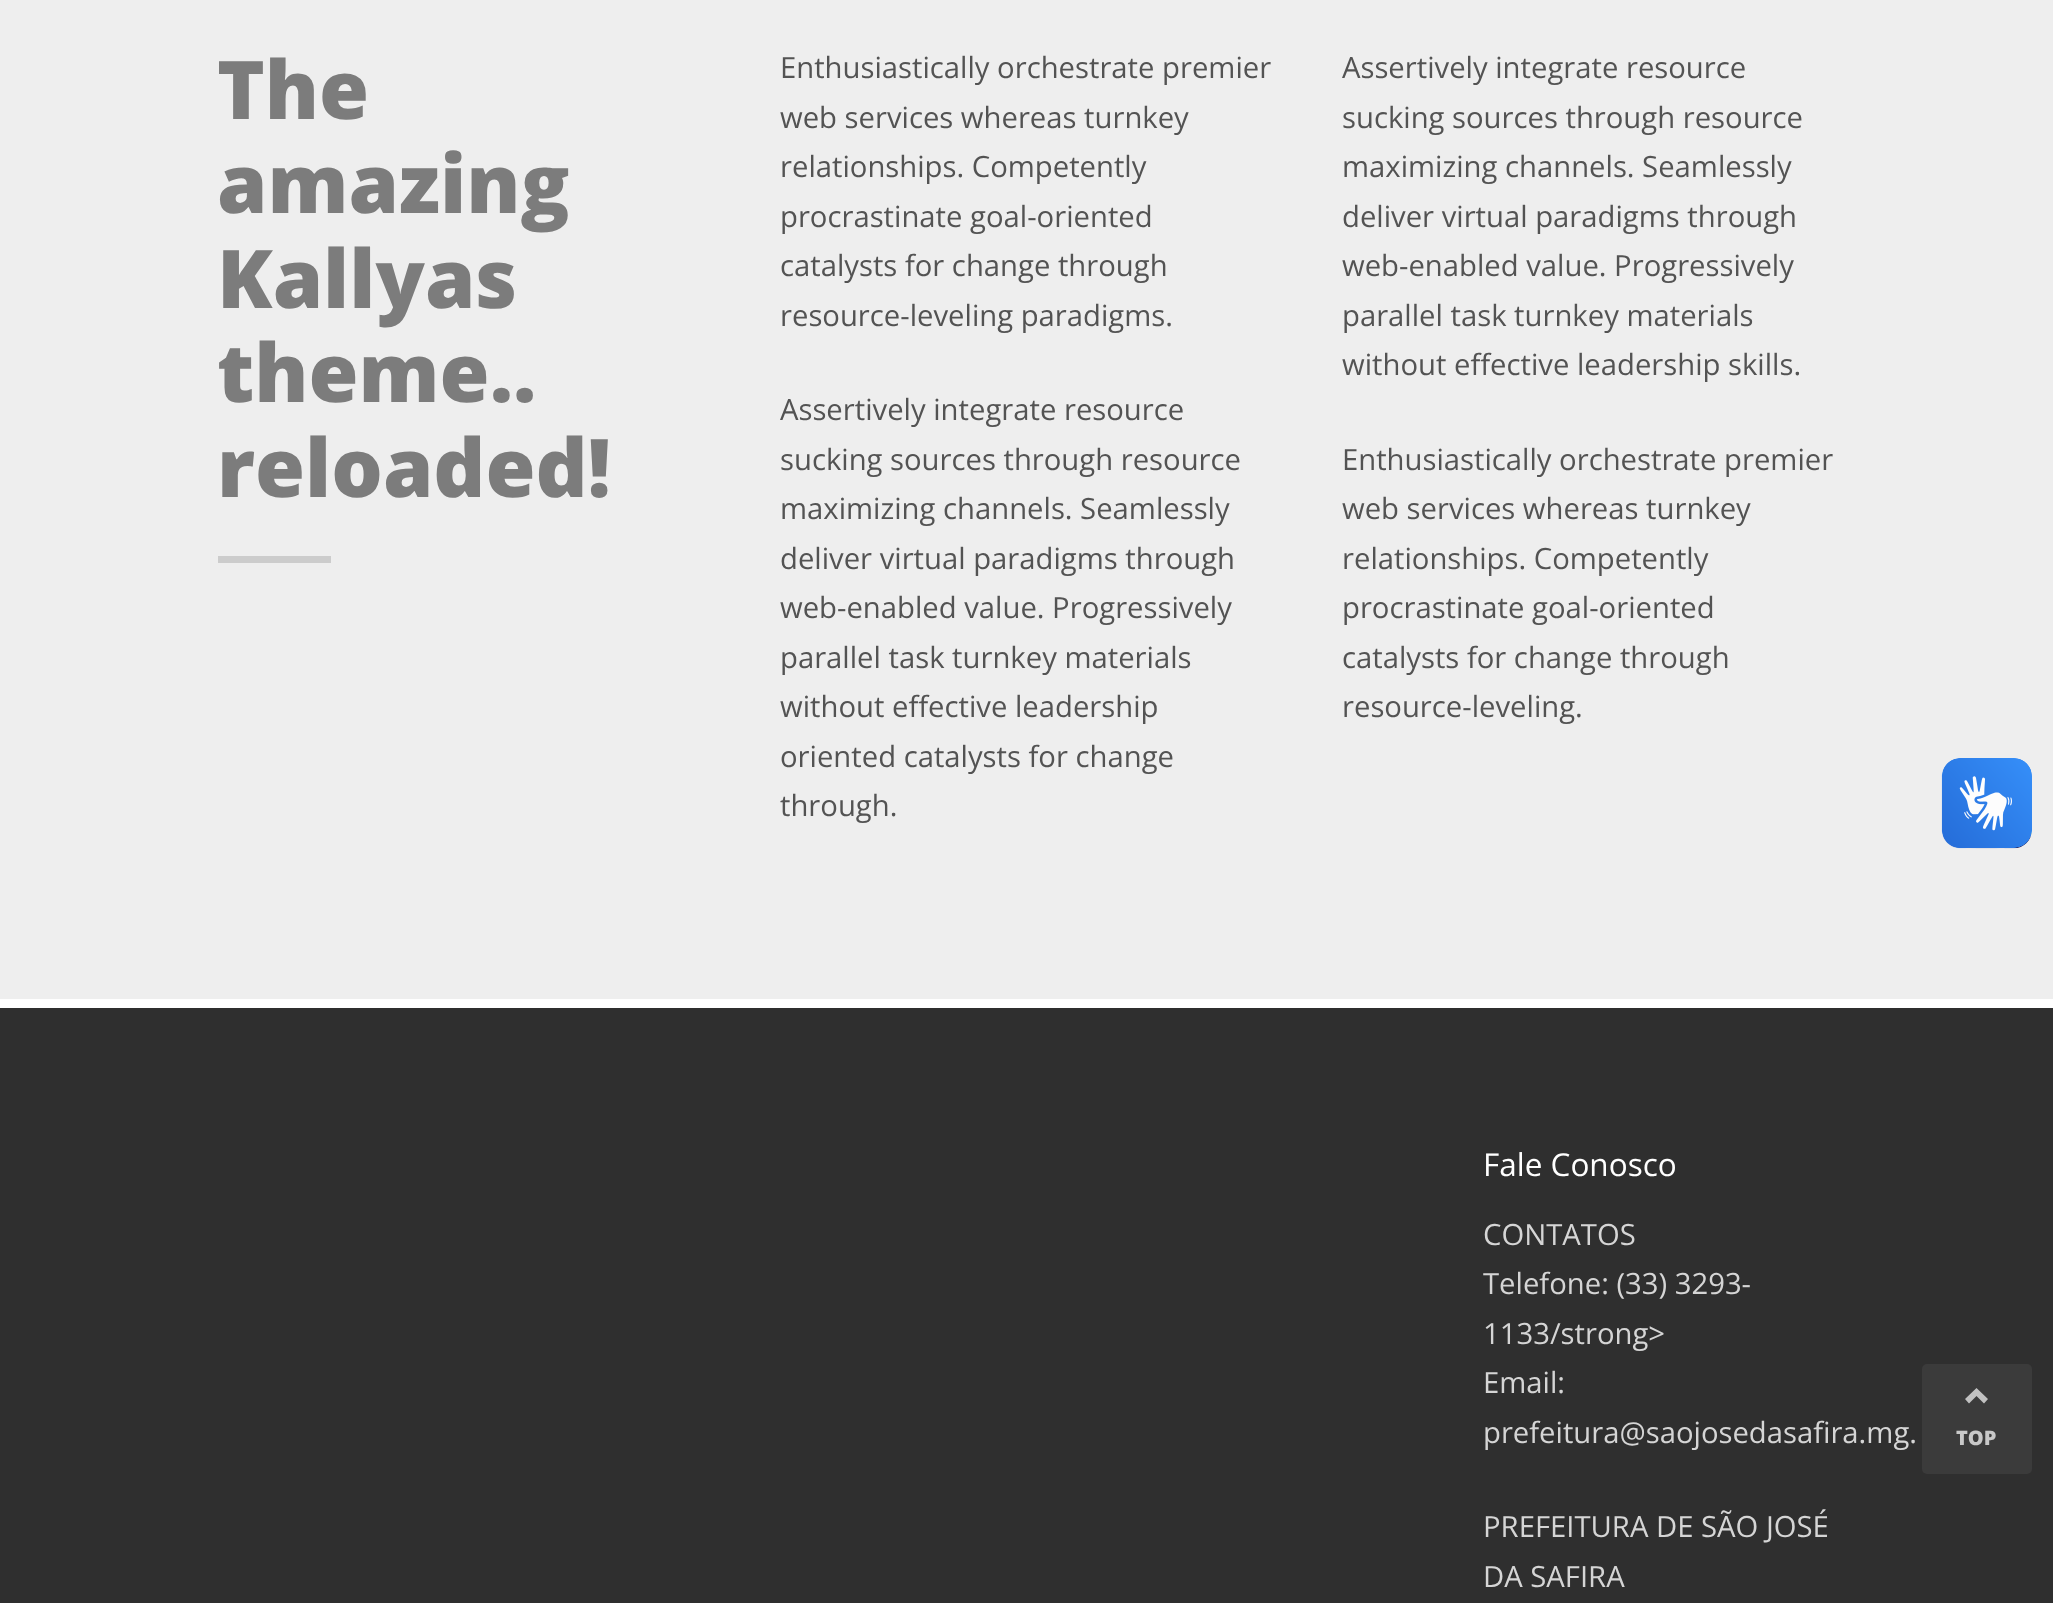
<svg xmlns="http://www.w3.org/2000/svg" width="2053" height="1603">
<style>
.a{font:800 81px Open Sans;fill:#7c7c7c}
.b{font:29.25px Open Sans;fill:#535353}
.c{font:31.5px Open Sans;fill:#fff}
.d{font:29.25px Open Sans;fill:#d5d5d5}
.e{font:800 20px Open Sans;fill:#c8c8c8}
</style>
<rect width="100%" height="100%" fill="#eee"/>
<path fill="#ccc" d="M218 556h113v7H218z"/>
<path fill="#2f2f2f" d="M0 1008h2053v595H0z"/>
<path fill="#fff" d="M0 999h2053v9H0z"/>
<image href="1.png" x="1941" y="758" width="91" height="91"/>
<image href="2.png" x="1942" y="758" width="90" height="90"/>
<rect fill="#404040b3" x="1922" y="1364" width="110" height="110" rx="5"/>
<path fill="#c1c1c1" d="M1976.5 1388l11.5 11l-4 4.5l-7.5-7.5l-7.5 7.5l-4-4.5z"/>
<text class="a" x="217" y="119">The</text>
<text class="a" x="217" y="213">amazing</text>
<text class="a" x="217" y="308">Kallyas</text>
<text class="a" x="217" y="402">theme..</text>
<text class="a" x="217" y="497">reloaded!</text>
<text class="b" x="780" y="78">Enthusiastically orchestrate premier</text>
<text class="b" x="780" y="128">web services whereas turnkey</text>
<text class="b" x="780" y="177">relationships. Competently</text>
<text class="b" x="780" y="227">procrastinate goal-oriented</text>
<text class="b" x="780" y="276">catalysts for change through</text>
<text class="b" x="780" y="326">resource-leveling paradigms.</text>
<text class="b" x="780" y="420">Assertively integrate resource</text>
<text class="b" x="780" y="470">sucking sources through resource</text>
<text class="b" x="780" y="519">maximizing channels. Seamlessly</text>
<text class="b" x="780" y="569">deliver virtual paradigms through</text>
<text class="b" x="780" y="618">web-enabled value. Progressively</text>
<text class="b" x="780" y="668">parallel task turnkey materials</text>
<text class="b" x="780" y="717">without effective leadership</text>
<text class="b" x="780" y="767">oriented catalysts for change</text>
<text class="b" x="780" y="816">through.</text>
<text class="b" x="1342" y="78">Assertively integrate resource</text>
<text class="b" x="1342" y="128">sucking sources through resource</text>
<text class="b" x="1342" y="177">maximizing channels. Seamlessly</text>
<text class="b" x="1342" y="227">deliver virtual paradigms through</text>
<text class="b" x="1342" y="276">web-enabled value. Progressively</text>
<text class="b" x="1342" y="326">parallel task turnkey materials</text>
<text class="b" x="1342" y="375">without effective leadership skills.</text>
<text class="b" x="1342" y="470">Enthusiastically orchestrate premier</text>
<text class="b" x="1342" y="519">web services whereas turnkey</text>
<text class="b" x="1342" y="569">relationships. Competently</text>
<text class="b" x="1342" y="618">procrastinate goal-oriented</text>
<text class="b" x="1342" y="668">catalysts for change through</text>
<text class="b" x="1342" y="717">resource-leveling.</text>
<text class="c" x="1483" y="1176">Fale Conosco</text>
<text class="d" x="1483" y="1245">CONTATOS</text>
<text class="d" x="1483" y="1294">Telefone: (33) 3293-</text>
<text class="d" x="1483" y="1344">1133/strong&gt;</text>
<text class="d" x="1483" y="1393">Email:</text>
<text class="d" x="1483" y="1443">prefeitura@saojosedasafira.mg.</text>
<text class="d" x="1483" y="1537">PREFEITURA DE SÃO JOSÉ</text>
<text class="d" x="1483" y="1587">DA SAFIRA</text>
<text class="e" x="1956" y="1445">TOP</text>
</svg>
